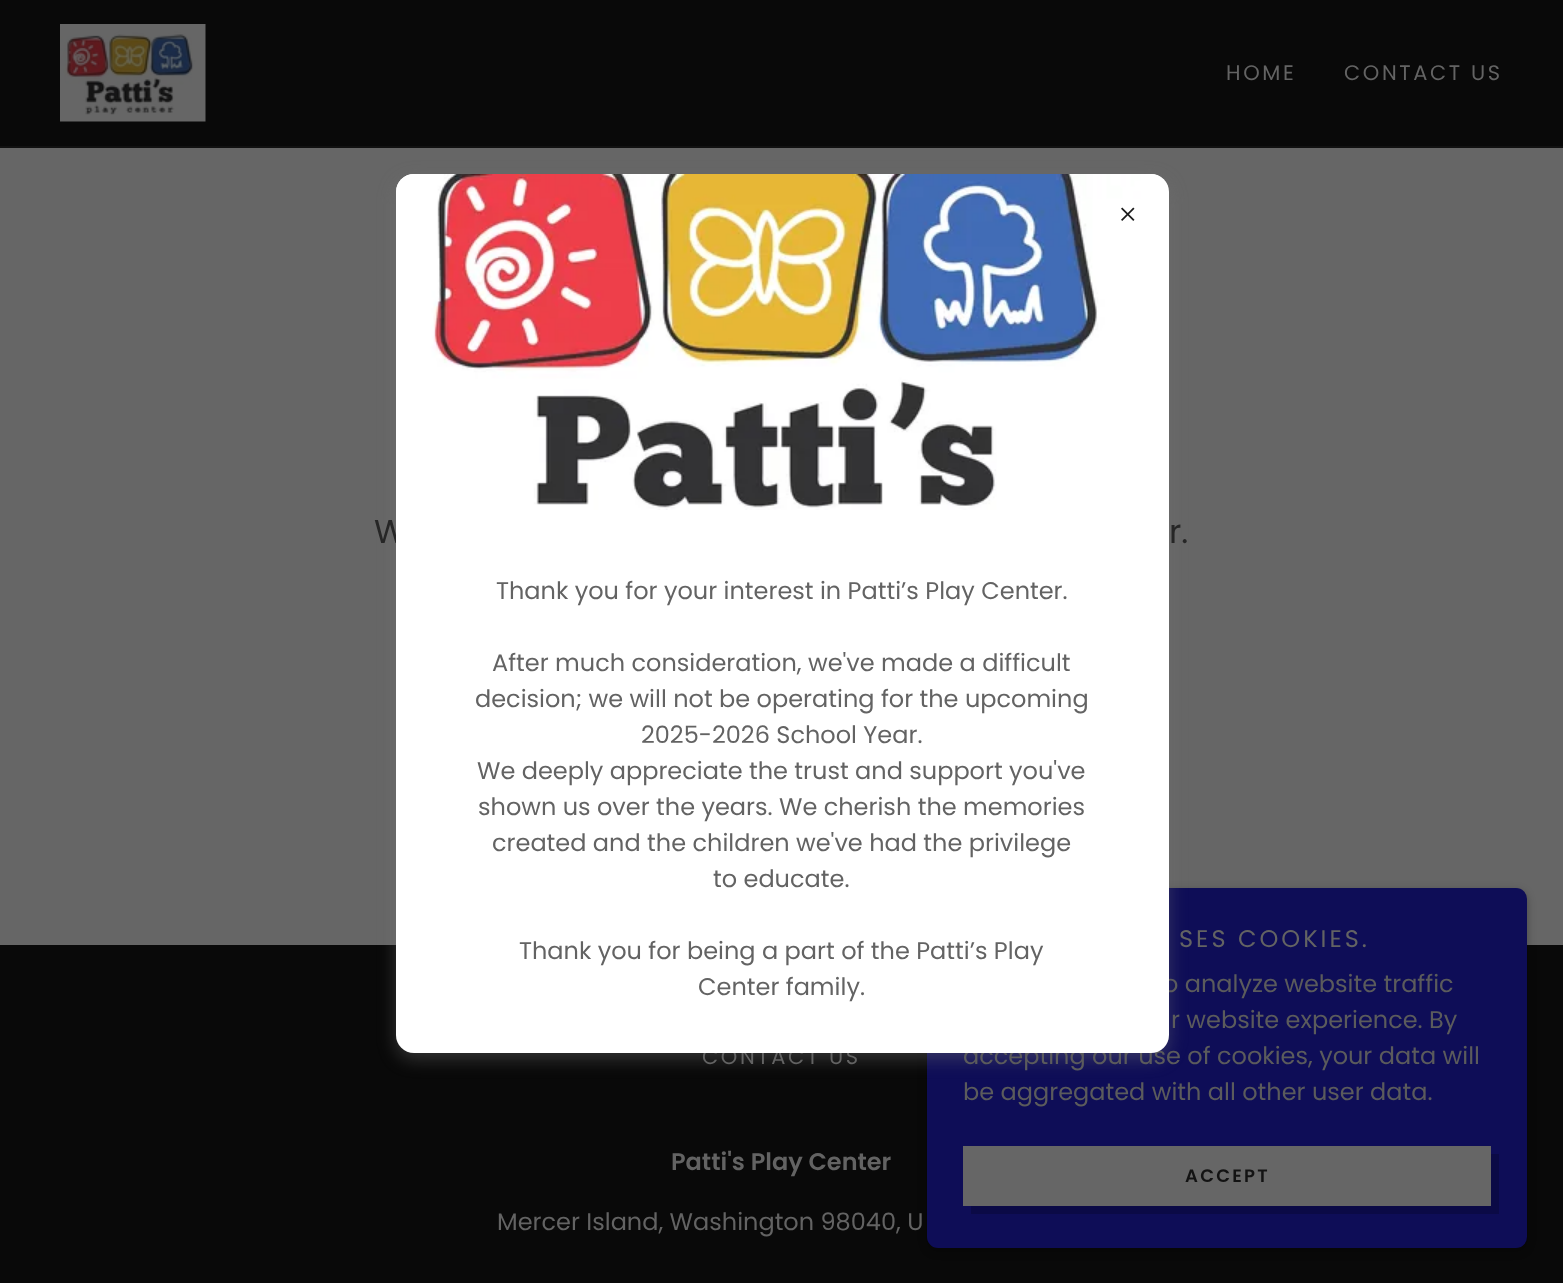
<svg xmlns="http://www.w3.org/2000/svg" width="1563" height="1283">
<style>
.a{font:21px Poppins;letter-spacing:2.6px;fill:#636363}
.b{font:33px Poppins;fill:#262626}
.c{font:600 24px Poppins;fill:#636363}
.d{font:24px Poppins;fill:#636363}
.e{font:24px Poppins;letter-spacing:3px;fill:#636363}
.f{font:24px Poppins;fill:#5b5b5c}
.g{font:600 18px Poppins;letter-spacing:2.25px;fill:#131313}
</style>
<rect width="100%" height="100%" fill="#090909"/>
<image href="1.png" x="60" y="24" width="146" height="98"/>
<path fill="#111" d="M0 146h1563v2H0z"/>
<path fill="#666" d="M0 148h1563v797H0z"/>
<rect fill="#0000004d" filter="blur(4.5px)" x="927" y="891" width="600" height="360" rx="11"/>
<rect fill="#0e0d57" x="927" y="888" width="600" height="360" rx="11"/>
<rect fill="#75757566" filter="blur(9px)" x="396" y="180" width="773" height="879" rx="18"/>
<path fill="#666" d="M963 1146h528v60H963z"/>
<path fill="#0b0a46" d="M971 1206v8h528v-60h-8v52z"/>
<text class="a" x="1226" y="80">HOME</text>
<text class="a" x="1344" y="80">CONTACT US</text>
<text class="b" x="374" y="543">W</text>
<text class="b" x="1169" y="543">r.</text>
<text class="a" x="702" y="1064">CONTACT US</text>
<text class="c" x="671" y="1170">Patti's Play Center</text>
<text class="d" x="497" y="1230">Mercer Island, Washington 98040, U</text>
<text class="e" x="1179" y="947">SES COOKIES.</text>
<text class="f" x="1163" y="992">o analyze website traffic</text>
<text class="f" x="1171" y="1028">r website experience. By</text>
<text class="f" x="963" y="1064">accepting our use of cookies, your data will</text>
<rect fill="#fff" x="396" y="174" width="773" height="879" rx="18"/>
<image href="3.png" x="396" y="174" width="773" height="336"/>
<image href="2.png" x="1121" y="207" width="14" height="14"/>
<text class="d" x="698" y="995">Center family.</text>
<text class="d" x="519" y="959">Thank you for being a part of the Patti’s Play</text>
<text class="d" x="713" y="887">to educate.</text>
<text class="d" x="492" y="851">created and the children we've had the privilege</text>
<text class="d" x="478" y="815">shown us over the years. We cherish the memories</text>
<text class="d" x="477" y="779">We deeply appreciate the trust and support you've</text>
<text class="d" x="641" y="743">2025-2026 School Year.</text>
<text class="d" x="475" y="707">decision; we will not be operating for the upcoming</text>
<text class="d" x="492" y="671">After much consideration, we've made a difficult</text>
<text class="d" x="496" y="599">Thank you for your interest in Patti’s Play Center.</text>
<text class="f" x="963" y="1100">be aggregated with all other user data.</text>
<text class="g" x="1185" y="1182">ACCEPT</text>
</svg>
